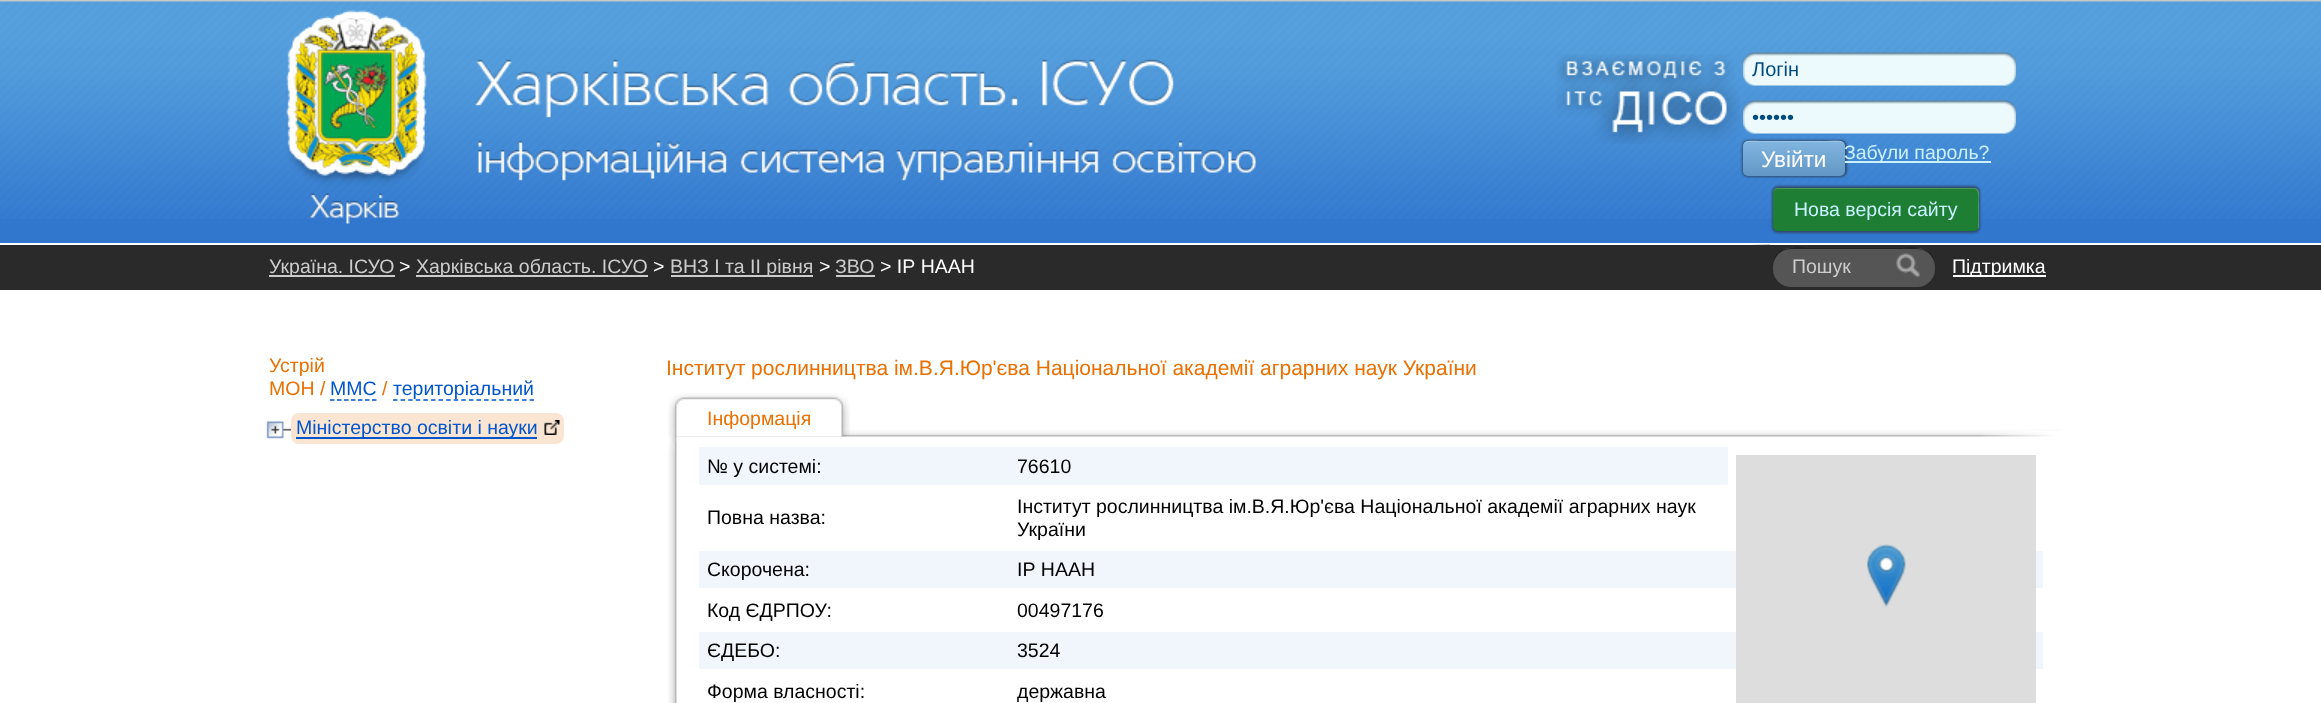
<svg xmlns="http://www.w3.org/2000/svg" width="2321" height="703">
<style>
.a{font:20px Liberation Sans;fill:#014c7f}
.b{font:22.5px Liberation Sans;fill:#fff}
.c{font:19.5px Liberation Sans;fill:#caf1ff}
.d{font:19.5px Liberation Sans;fill:#ccc}
.e{font:19.5px Liberation Sans;fill:#fff}
.f{font:19.5px Liberation Sans;fill:#e97001}
.g{font:19.5px Liberation Sans;fill:#05c}
.h{font:21px Liberation Sans;fill:#e97001}
.i{font:19.5px Liberation Sans;fill:#000}
</style>
<defs>
<linearGradient id="g1" gradientUnits="userSpaceOnUse" x1="1794" y1="176" x2="1794" y2="141"><stop offset="0" stop-color="#6296c4"/><stop offset="1" stop-color="#82b6e1"/></linearGradient>
</defs>
<rect width="100%" height="100%" fill="#fff"/>
<path fill="#3177ce" d="M0 219h2321v24H0z"/>
<image href="1.png" x="0" y="0" width="2321" height="219"/>
<image href="2.png" x="286" y="10" width="970" height="214"/>
<image href="3.png" x="1556" y="54" width="184" height="90"/>
<image href="4.png" x="1743" y="52" width="273" height="34"/>
<image href="5.png" x="1743" y="100" width="273" height="34"/>
<rect fill="#2f4666e6" filter="blur(1px)" x="1742" y="140" width="105" height="37" rx="6"/>
<rect fill="url(#g1)" x="1743" y="141" width="102" height="35" rx="5"/>
<path fill="#ffffff33" d="M1748 142h92c3 0 5 3 5 5c0-10-15-6-20-6h-62c-5 0-20-4-20 6c0-2 2-5 5-5z"/>
<path fill="#caf1ff" d="M1845 161h146v2H1845z"/>
<rect fill="#2f4666e6" filter="blur(1px)" x="1772" y="186" width="208" height="47" rx="6"/>
<rect fill="#1e7e34" x="1773" y="188" width="206" height="43" rx="5"/>
<path fill="#ffffff33" d="M1778 189h196c6 0 4 14 4 16v24c1-1 1-2 1-3v-33c0-3-2-5-5-5h-196c-3 0-5 2-5 5v1c0-3 2-5 5-5z"/>
<path fill="#2a2a2a" d="M0 245h2321v45H0z"/>
<image href="6.png" x="1751" y="244" width="19" height="1"/>
<path fill="#ccc" d="M269 275h126v2H269z"/>
<path fill="#ccc" d="M416 275h232v2H416z"/>
<path fill="#ccc" d="M671 275h142v2H671z"/>
<path fill="#ccc" d="M836 275h39v2H836z"/>
<rect fill="#555" x="1773" y="248" width="162" height="39" rx="18"/>
<path fill="#0000004d" d="M1791 249h126c10 0 18 8 18 18c0-23-23-19-39-19h-84c-16 0-39-4-39 19c0-10 8-18 18-18z"/>
<path fill="#00000066" d="M1791 249h126c10 0 18 8 18 18c0-23-23-19-39-19h-84c-16 0-39-4-39 19c0-10 8-18 18-18z"/>
<image href="7.png" x="1896" y="253" width="24" height="25"/>
<path fill="#fff" d="M1953 275h93v2H1953z"/>
<path fill="none" stroke="#05c" stroke-width="1.5" stroke-dasharray="4.5 2.5" d="M330 400h46.5"/>
<path fill="none" stroke="#05c" stroke-width="1.5" stroke-dasharray="4.5 3.09" d="M393 400h141"/>
<image href="8.png" x="266" y="421" width="25" height="18"/>
<rect fill="#fae5d2" x="291" y="413" width="273" height="31" rx="8"/>
<path fill="#05c" d="M296 437h241v2H296z"/>
<image href="9.png" x="544" y="420" width="16" height="15"/>
<image href="11.png" x="668" y="429" width="1393" height="274"/>
<image href="10.png" x="668" y="393" width="182" height="44"/>
<image href="12.png" x="1982" y="431" width="79" height="6"/>
<path fill="#f1f5fc" d="M699 447h1029v38H699z"/>
<path fill="#f1f5fc" d="M699 551h1344v37H699z"/>
<path fill="#f1f5fc" d="M699 632h1344v37H699z"/>
<path fill="#ddd" d="M1736 455h300v248H1736z"/>
<image href="13.png" x="1867" y="544" width="39" height="63"/>
<text class="a" x="1752" y="76">Логін</text>
<text class="a" x="1752" y="124">••••••</text>
<text class="b" x="1761" y="167">Увійти</text>
<text class="c" x="1844" y="159">Забули пароль?</text>
<text class="c" x="1794" y="216">Нова версія сайту</text>
<text class="d" x="269" y="273">Україна. ІСУО</text>
<text class="e" x="399" y="273">&gt;</text>
<text class="d" x="416" y="273">Харківська область. ІСУО</text>
<text class="e" x="653" y="273">&gt;</text>
<text class="d" x="670" y="273">ВНЗ І та ІІ рівня</text>
<text class="e" x="819" y="273">&gt;</text>
<text class="d" x="835" y="273">ЗВО</text>
<text class="e" x="880" y="273">&gt; ІР НААН</text>
<text class="d" x="1792" y="273">Пошук</text>
<text class="e" x="1952" y="273">Підтримка</text>
<text class="f" x="269" y="372">Устрій</text>
<text class="f" x="269" y="395">МОН /</text>
<text class="g" x="330" y="395">ММС</text>
<text class="f" x="382" y="395">/</text>
<text class="g" x="393" y="395">територіальний</text>
<text class="g" x="296" y="434">Міністерство освіти і науки</text>
<text class="h" x="666" y="375">Інститут рослинництва ім.В.Я.Юр'єва Національної академії аграрних наук України</text>
<text class="f" x="707" y="425">Інформація</text>
<text class="i" x="707" y="473">№ у системі:</text>
<text class="i" x="1017" y="473">76610</text>
<text class="i" x="707" y="524">Повна назва:</text>
<text class="i" x="1017" y="513">Інститут рослинництва ім.В.Я.Юр'єва Національної академії аграрних наук</text>
<text class="i" x="1017" y="536">України</text>
<text class="i" x="707" y="576">Скорочена:</text>
<text class="i" x="1017" y="576">ІР НААН</text>
<text class="i" x="707" y="617">Код ЄДРПОУ:</text>
<text class="i" x="1017" y="617">00497176</text>
<text class="i" x="707" y="657">ЄДЕБО:</text>
<text class="i" x="1017" y="657">3524</text>
<text class="i" x="707" y="698">Форма власності:</text>
<text class="i" x="1017" y="698">державна</text>
</svg>
